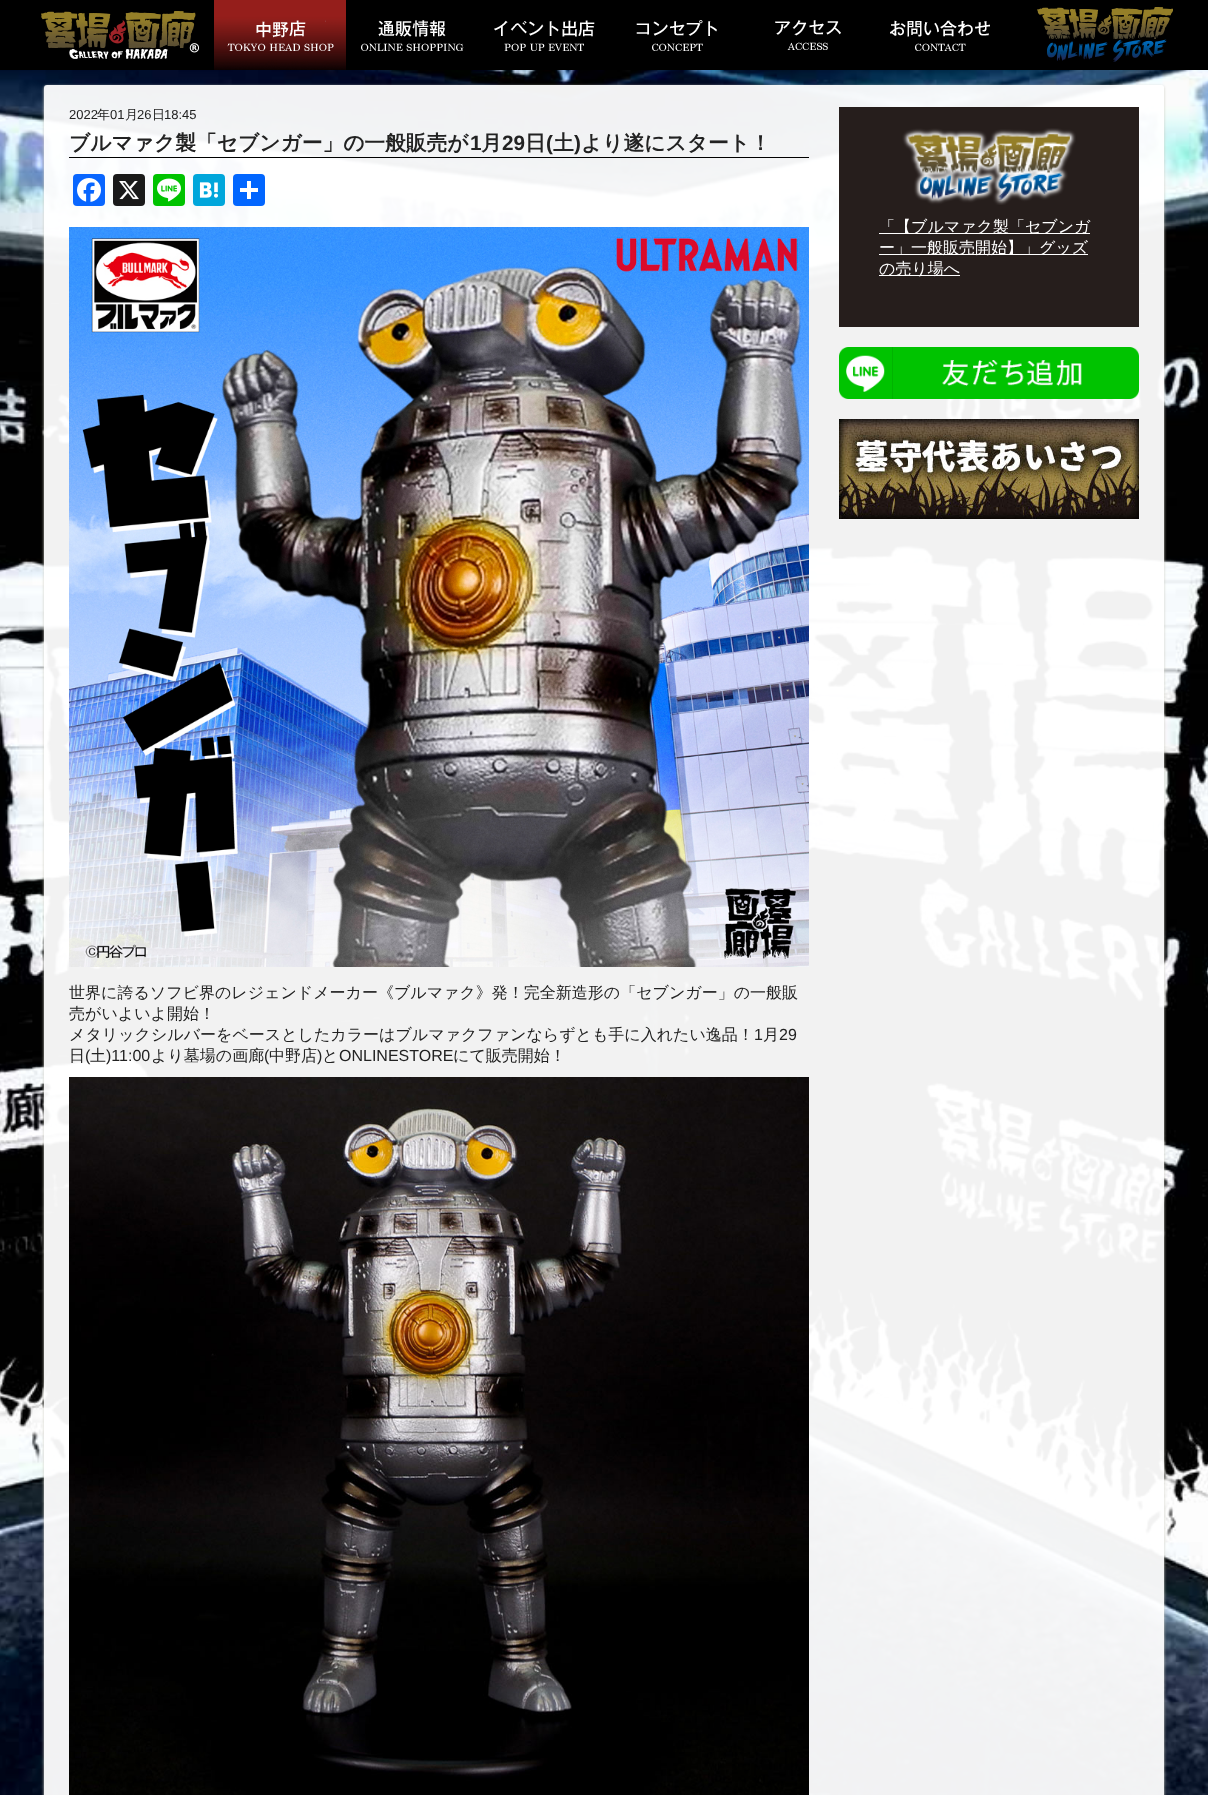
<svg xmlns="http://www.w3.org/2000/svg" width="1208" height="1795">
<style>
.a{font:13px Liberation Sans;fill:#222}
.b{font:500 13px WenQuanYi Zen Hei;fill:#222}
.c{font:bold 20.75px WenQuanYi Zen Hei;fill:#222}
.d{font:bold 20.75px Liberation Sans;fill:#222}
.e{font:500 16px WenQuanYi Zen Hei;fill:#222}
.f{font:16px Liberation Sans;fill:#222}
.g{font:500 16px WenQuanYi Zen Hei;fill:#fff}
</style>
<defs>
<clipPath id="clip1"><path d="M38 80h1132v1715h-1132zm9 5h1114c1.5 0 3 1.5 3 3v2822c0 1.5-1.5 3-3 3h-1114c-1.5 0-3-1.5-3-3v-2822c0-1.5 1.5-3 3-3z" clip-rule="evenodd"/></clipPath>
</defs>
<rect width="100%" height="100%" fill="#fff"/>
<image href="1.png" x="0" y="70" width="1208" height="1725"/>
<path fill="#000" d="M0 0h1208v70H0z"/>
<image href="2.png" x="41" y="11" width="158" height="48"/>
<image href="3.png" x="214" y="0" width="132" height="70"/>
<image href="4.png" x="227" y="20" width="107" height="31"/>
<image href="5.png" x="361" y="20" width="103" height="31"/>
<image href="6.png" x="494" y="20" width="101" height="31"/>
<image href="7.png" x="636" y="20" width="81" height="31"/>
<image href="8.png" x="775" y="20" width="66" height="30"/>
<image href="9.png" x="890" y="20" width="100" height="31"/>
<image href="10.png" x="1037" y="7" width="136" height="55"/>
<g clip-path="url(#clip1)">
<rect fill="#d1cfc6" filter="blur(1.5px)" x="44" y="86" width="1120" height="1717" rx="3"/>
</g>
<rect fill="#fffffff2" x="44" y="85" width="1120" height="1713" rx="3"/>
<path fill="#000" d="M69 157h740v1H69z"/>
<rect fill="#0866ff" x="73" y="174" width="32" height="32" rx="4"/>
<image href="11.png" x="77" y="178" width="24" height="24"/>
<rect fill="#1a1a1a" x="113" y="174" width="32" height="32" rx="4"/>
<image href="12.png" x="119" y="181" width="20" height="19"/>
<rect fill="#00c300" x="153" y="174" width="32" height="32" rx="4"/>
<image href="13.png" x="157" y="178" width="24" height="24"/>
<rect fill="#00a6db" x="193" y="174" width="32" height="32" rx="4"/>
<image href="14.png" x="199" y="182" width="19" height="16"/>
<rect fill="#0166ff" x="233" y="174" width="32" height="32" rx="4"/>
<path fill="#fff" d="M247 181h4v18H247z"/>
<path fill="#fff" d="M240 188h18v4H240z"/>
<image href="15.png" x="69" y="227" width="740" height="740"/>
<image href="16.png" x="69" y="1077" width="740" height="718"/>
<path fill="#261e1c" d="M839 107h300v220H839z"/>
<image href="17.png" x="902" y="128" width="174" height="77"/>
<path fill="#fff" d="M879 233h211v1H879z"/>
<path fill="#fff" d="M879 254h209v1H879z"/>
<path fill="#fff" d="M879 275h81v1H879z"/>
<image href="18.png" x="839" y="347" width="300" height="52"/>
<image href="19.png" x="839" y="419" width="300" height="100"/>
<text class="a" x="69" y="119">2022</text>
<text class="b" x="97" y="119">年</text>
<text class="a" x="110" y="119">01</text>
<text class="b" x="125" y="119">月</text>
<text class="a" x="137" y="119">26</text>
<text class="b" x="152" y="119">日</text>
<text class="a" x="164" y="119">18:45</text>
<text class="c" x="69" y="150">ブルマァク製「セブンガー」の一般販売が</text>
<text class="d" x="470" y="150">1</text>
<text class="c" x="481" y="150">月</text>
<text class="d" x="502" y="150">29</text>
<text class="c" x="525" y="150">日</text>
<text class="d" x="546" y="150">(</text>
<text class="c" x="553" y="150">土</text>
<text class="d" x="574" y="150">)</text>
<text class="c" x="581" y="150">より遂にスタート！</text>
<text class="e" x="69" y="998">世界に誇るソフビ界のレジェンドメーカー《ブルマァク》発！完全新造形の「セブンガー」の一般販</text>
<text class="e" x="69" y="1019">売がいよいよ開始！</text>
<text class="e" x="69" y="1040">メタリックシルバーをベースとしたカラーはブルマァクファンならずとも手に入れたい逸品！</text>
<text class="f" x="754" y="1040">1</text>
<text class="e" x="763" y="1040">月</text>
<text class="f" x="779" y="1040">29</text>
<text class="e" x="69" y="1061">日</text>
<text class="f" x="85" y="1061">(</text>
<text class="e" x="90" y="1061">土</text>
<text class="f" x="106" y="1061">)11:00</text>
<text class="e" x="151" y="1061">より墓場の画廊</text>
<text class="f" x="264" y="1061">(</text>
<text class="e" x="269" y="1061">中野店</text>
<text class="f" x="317" y="1061">)</text>
<text class="e" x="322" y="1061">と</text>
<text class="f" x="339" y="1061">ONLINESTORE</text>
<text class="e" x="453" y="1061">にて販売開始！</text>
<text class="g" x="879" y="232">「【ブルマァク製「セブンガ</text>
<text class="g" x="879" y="253">ー」一般販売開始】」グッズ</text>
<text class="g" x="879" y="274">の売り場へ</text>
</svg>
